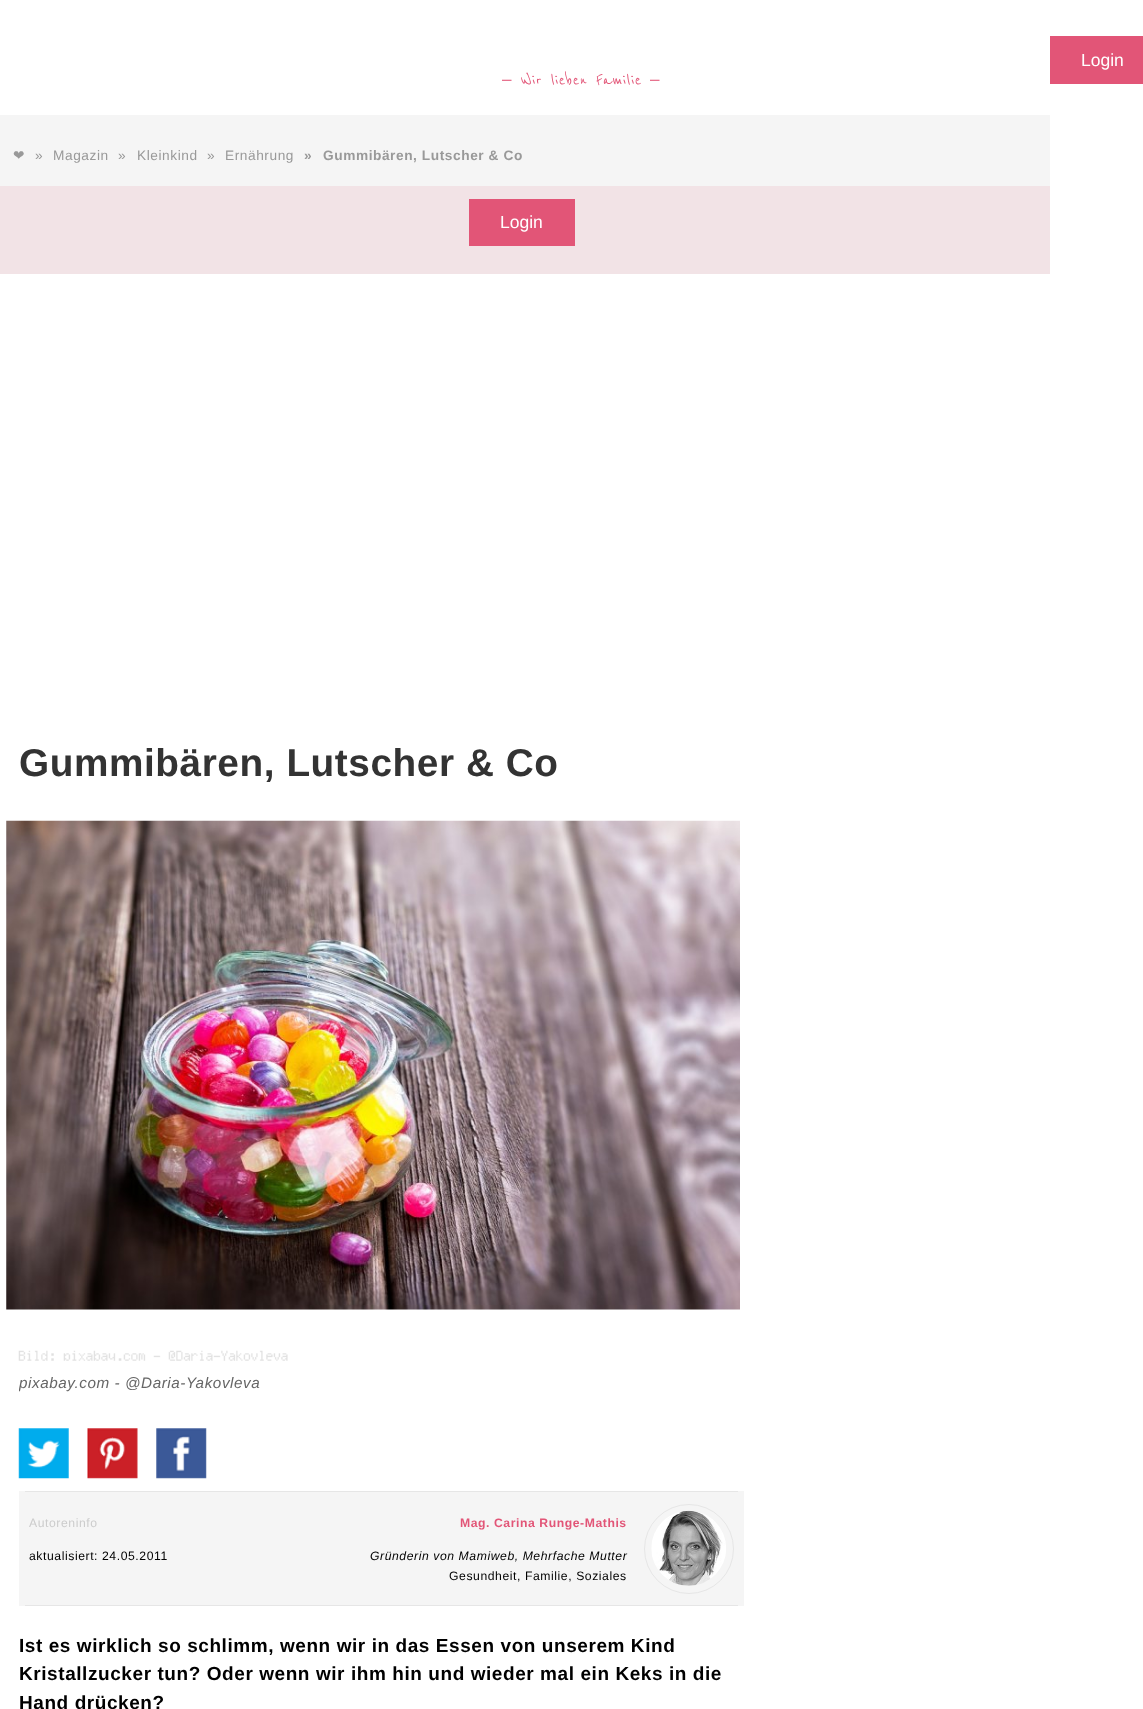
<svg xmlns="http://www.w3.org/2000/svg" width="1143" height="1709">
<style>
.a{font:17.5px Liberation Sans;fill:#fff}
.b{font:19px FreeSans;letter-spacing:0.57px;fill:#e25577}
.c{font:500 19px Reenie Beanie;letter-spacing:0.57px;fill:#e25577}
.d{font:13.7px DejaVu Sans;letter-spacing:0.57px;fill:#999}
.e{font:13.7px Liberation Sans;letter-spacing:0.57px;fill:#999}
.f{font:bold 13.7px Liberation Sans;letter-spacing:0.57px;fill:#999}
.g{font:bold 38.75px Liberation Sans;letter-spacing:0.57px;fill:#333}
.h{font:italic 15.25px Liberation Sans;letter-spacing:0.57px;fill:#666}
.i{font:12.2px Liberation Sans;letter-spacing:0.57px;fill:#ccc}
.j{font:bold 12.2px Liberation Sans;letter-spacing:0.57px;fill:#e25577}
.k{font:12.2px Liberation Sans;letter-spacing:0.57px;fill:#000}
.l{font:italic 12.2px Liberation Sans;letter-spacing:0.57px;fill:#000}
.m{font:bold 19px Liberation Sans;letter-spacing:0.57px;fill:#000}
</style>
<defs>
<clipPath id="clip1"><path d="M19 1369h735v29H19z"/></clipPath>
</defs>
<rect width="100%" height="100%" fill="#fff"/>
<path fill="#e25577" d="M1050 36h93v48H1050z"/>
<path fill="#f5f5f5" d="M0 115h1050v71H0z"/>
<path fill="#f2e3e6" d="M0 186h1050v88H0z"/>
<path fill="#e25577" d="M469 199h106v47H469z"/>
<image href="1.png" x="6" y="820" width="734" height="490"/>
<image href="2.png" x="18" y="1350" width="270" height="11"/>
<image href="3.png" x="18" y="1428" width="51" height="51"/>
<image href="4.png" x="87" y="1428" width="51" height="51"/>
<image href="5.png" x="156" y="1428" width="51" height="51"/>
<path fill="#f5f5f5" d="M19 1491h725v115H19z"/>
<path fill="#e6e6e6" d="M25 1491h713v1H25z"/>
<path fill="#e6e6e6" d="M25 1605h713v1H25z"/>
<circle fill="none" stroke="#e6e6e6" cx="689" cy="1549" r="44.5"/>
<image href="6.png" x="651" y="1510" width="75" height="76"/>
<text class="a" x="1081" y="66">Login</text>
<text class="b" x="502" y="85">⎯</text>
<text class="c" x="521" y="85">Wir lieben Familie</text>
<text class="b" x="650" y="85">⎯</text>
<text class="d" x="13" y="160">❤</text>
<text class="e" x="35" y="160">»</text>
<text class="e" x="53" y="160">Magazin</text>
<text class="e" x="118" y="160">»</text>
<text class="e" x="137" y="160">Kleinkind</text>
<text class="e" x="207" y="160">»</text>
<text class="e" x="225" y="160">Ernährung</text>
<text class="f" x="304" y="160">»</text>
<text class="f" x="323" y="160">Gummibären, Lutscher &amp; Co</text>
<text class="a" x="500" y="228">Login</text>
<text class="g" x="19" y="776">Gummibären, Lutscher &amp; Co</text>
<g clip-path="url(#clip1)">
<text class="h" x="19" y="1388">pixabay.com - @Daria-Yakovleva</text>
</g>
<text class="i" x="29" y="1527">Autoreninfo</text>
<text class="j" x="460" y="1527">Mag. Carina Runge-Mathis</text>
<text class="k" x="29" y="1560">aktualisiert: 24.05.2011</text>
<text class="l" x="370" y="1560">Gründerin von Mamiweb, Mehrfache Mutter</text>
<text class="k" x="449" y="1580">Gesundheit, Familie, Soziales</text>
<text class="m" x="19" y="1652">Ist es wirklich so schlimm, wenn wir in das Essen von unserem Kind</text>
<text class="m" x="19" y="1680">Kristallzucker tun? Oder wenn wir ihm hin und wieder mal ein Keks in die</text>
<text class="m" x="19" y="1709">Hand drücken?</text>
</svg>
